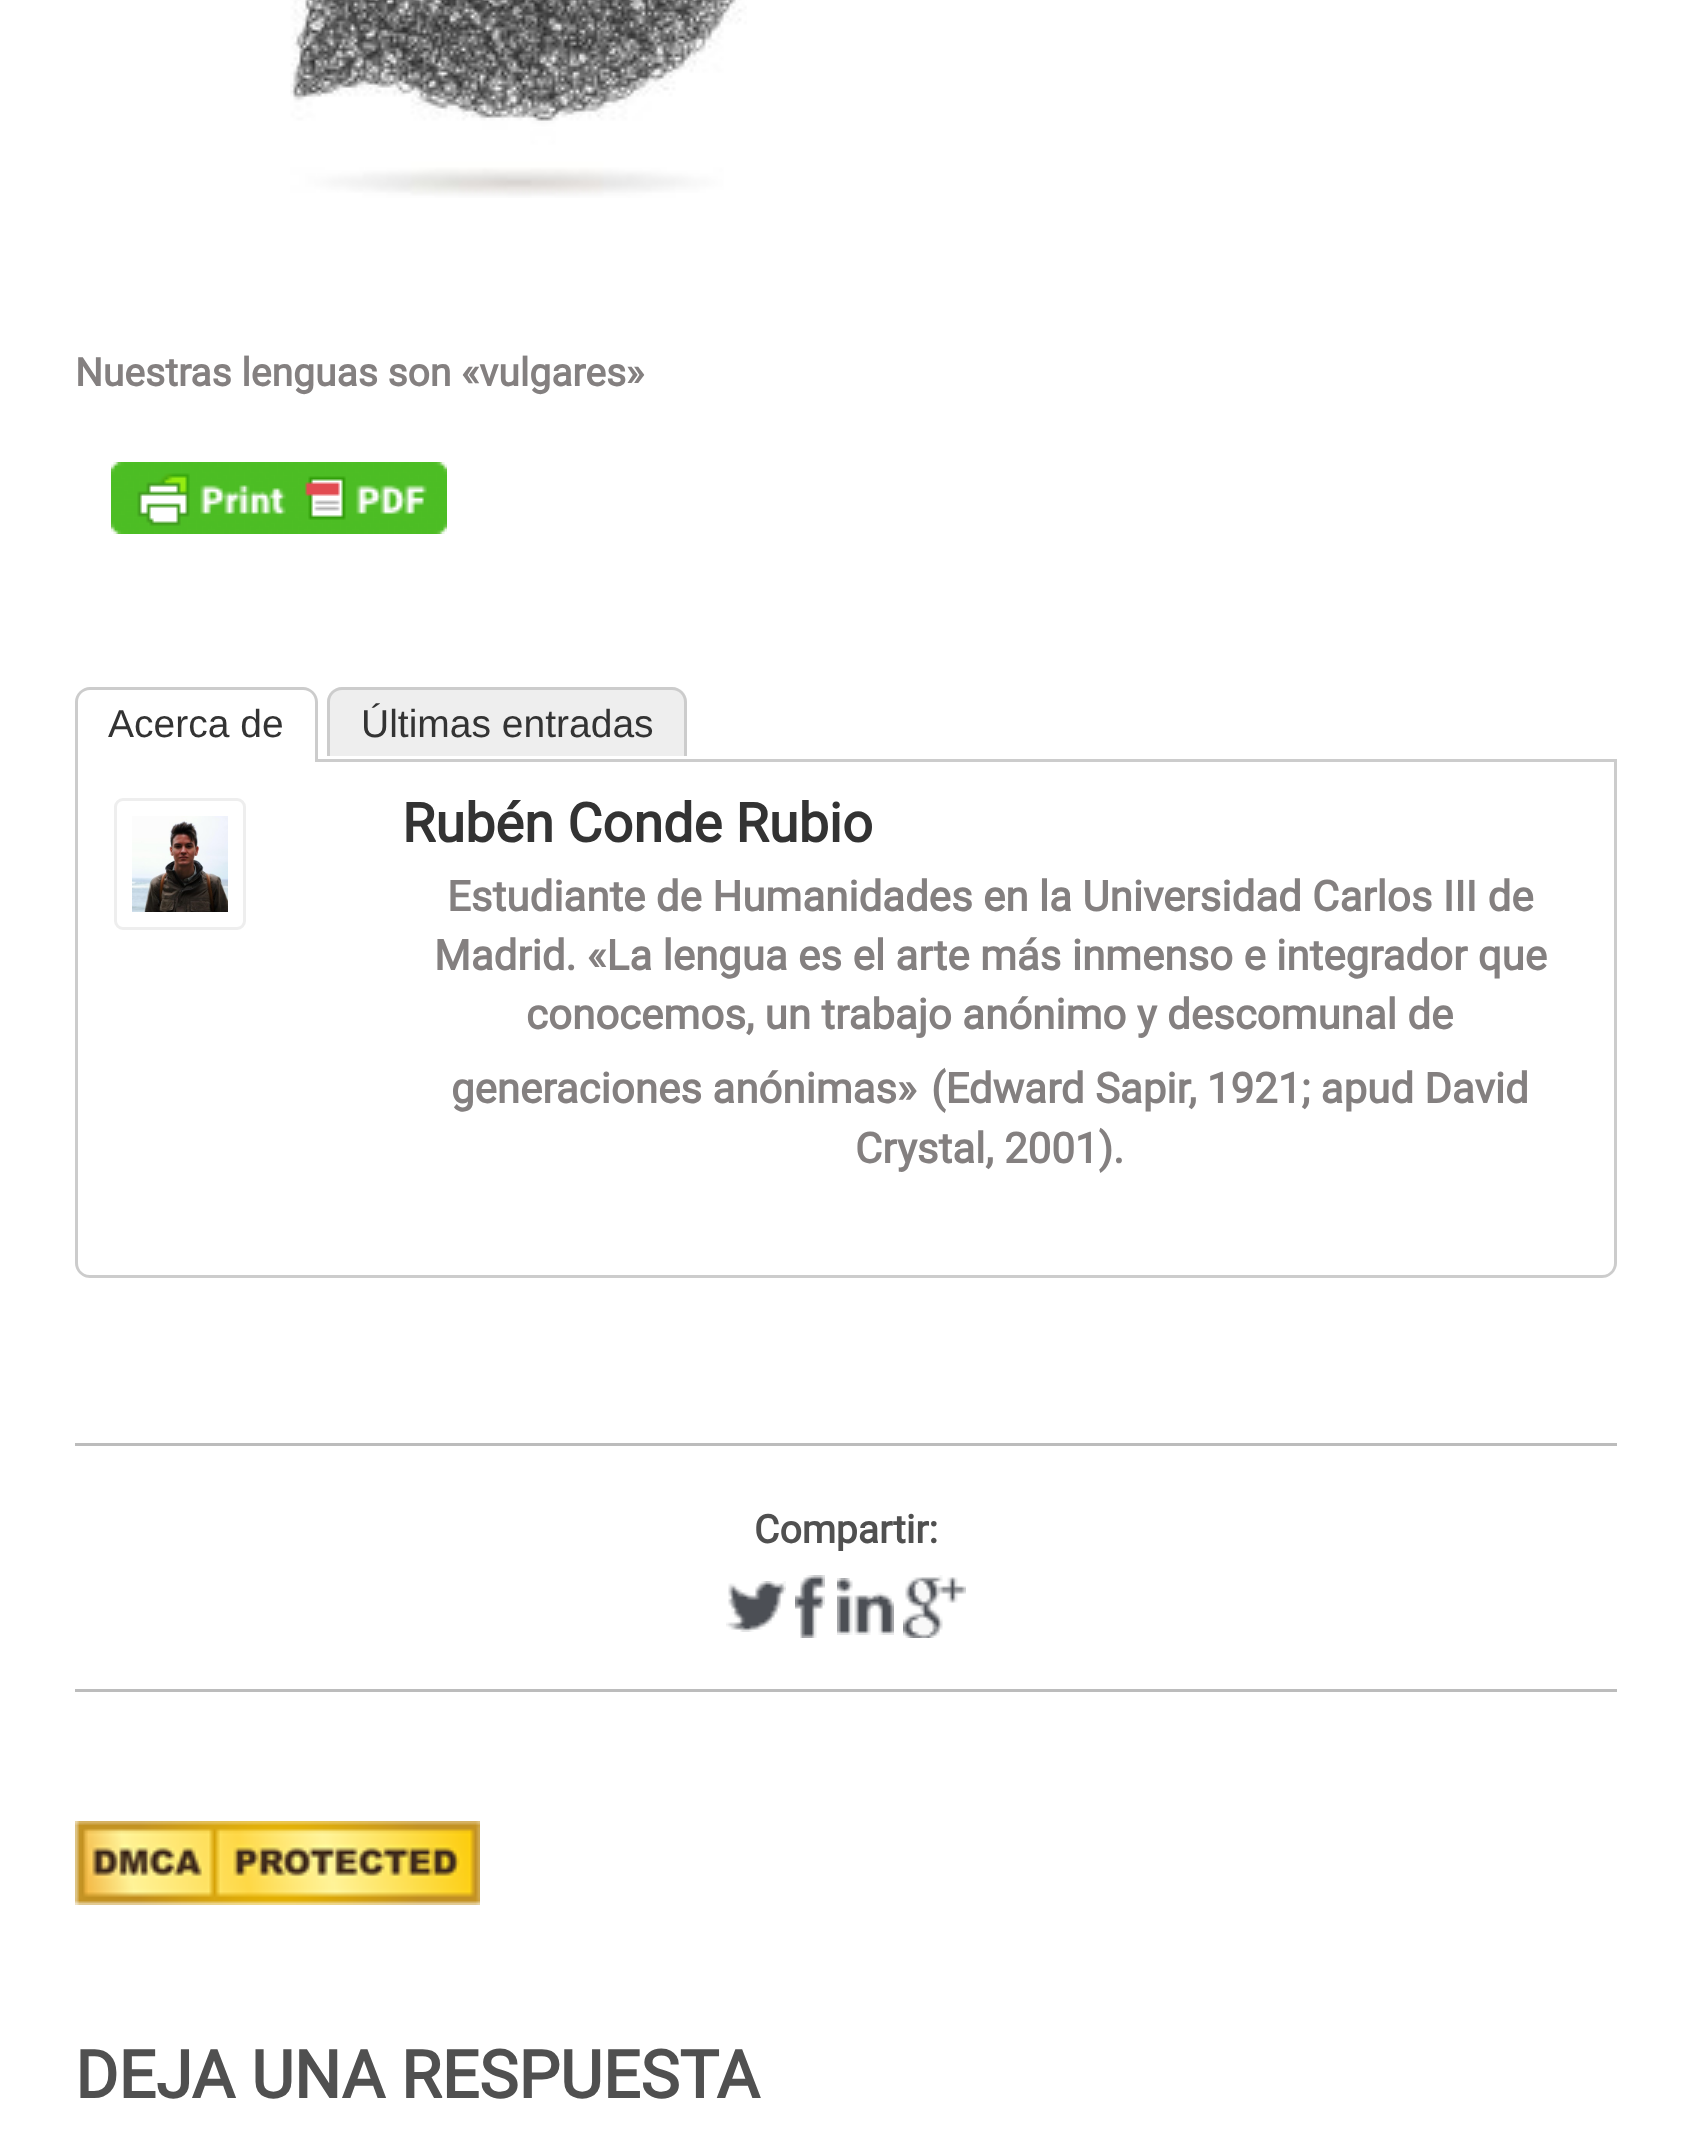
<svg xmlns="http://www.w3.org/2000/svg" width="1690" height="2145">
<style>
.a{font:bold 39px Roboto;fill:#848080}
.b{font:39px Liberation Sans;fill:#333}
.c{font:bold 54px Roboto;fill:#333}
.d{font:bold 42px Roboto;fill:#848080}
.e{font:bold 39px Roboto;fill:#505050}
.f{font:bold 66px Roboto;fill:#505050}
</style>
<rect width="100%" height="100%" fill="#fff"/>
<image href="1.png" x="290" y="0" width="457" height="198"/>
<image href="2.png" x="111" y="462" width="336" height="72"/>
<path fill="#ccc" d="M318 759h1299v3H318z"/>
<path fill="#ccc" fill-rule="evenodd" d="M90 687h213c8 0 15 7 15 15v60h-243v-60c0-8 7-15 15-15zm0 3h213c7 0 12 5 12 12v60h-237v-60c0-7 5-12 12-12z"/>
<path fill="#eee" d="M342 687h330c8.5 0 15 6.5 15 15v54h-360v-54c0-8.5 6.5-15 15-15z"/>
<path fill="#ccc" fill-rule="evenodd" d="M342 687h330c8 0 15 7 15 15v54h-360v-54c0-8 7-15 15-15zm0 3h330c7 0 12 5 12 12v54h-354v-54c0-7 5-12 12-12z"/>
<path fill="#ccc" fill-rule="evenodd" d="M75 762h1542v501c0 8-7 15-15 15h-1512c-8 0-15-7-15-15zm3 0h1536v501c0 7-5 12-12 12h-1512c-7 0-12-5-12-12z"/>
<rect fill="none" stroke="#eee" stroke-width="3" x="115.5" y="799.5" width="129" height="129" rx="7.5"/>
<image href="3.png" x="132" y="816" width="96" height="96"/>
<path fill="#bcbcbc" d="M75 1443h1542v3H75z"/>
<path fill="#bcbcbc" d="M75 1689h1542v3H75z"/>
<image href="4.png" x="726" y="1581" width="60" height="51"/>
<image href="5.png" x="795" y="1575" width="30" height="63"/>
<image href="6.png" x="837" y="1578" width="57" height="57"/>
<image href="7.png" x="903" y="1575" width="63" height="63"/>
<image href="8.png" x="75" y="1821" width="405" height="84"/>
<text class="a" x="75" y="386">Nuestras lenguas son «vulgares»</text>
<text class="b" x="108" y="737">Acerca de</text>
<text class="b" x="361" y="737">Últimas entradas</text>
<text class="c" x="402" y="842">Rubén Conde Rubio</text>
<text class="d" x="447" y="911">Estudiante de Humanidades en la Universidad Carlos III de</text>
<text class="d" x="434" y="970">Madrid. «La lengua es el arte más inmenso e integrador que</text>
<text class="d" x="526" y="1029">conocemos, un trabajo anónimo y descomunal de</text>
<text class="d" x="451" y="1103">generaciones anónimas»</text>
<text class="d" x="931" y="1103">(Edward Sapir, 1921; apud David</text>
<text class="d" x="855" y="1163">Crystal, 2001).</text>
<text class="e" x="754" y="1543">Compartir:</text>
<text class="f" x="75" y="2098">DEJA UNA RESPUESTA</text>
</svg>
